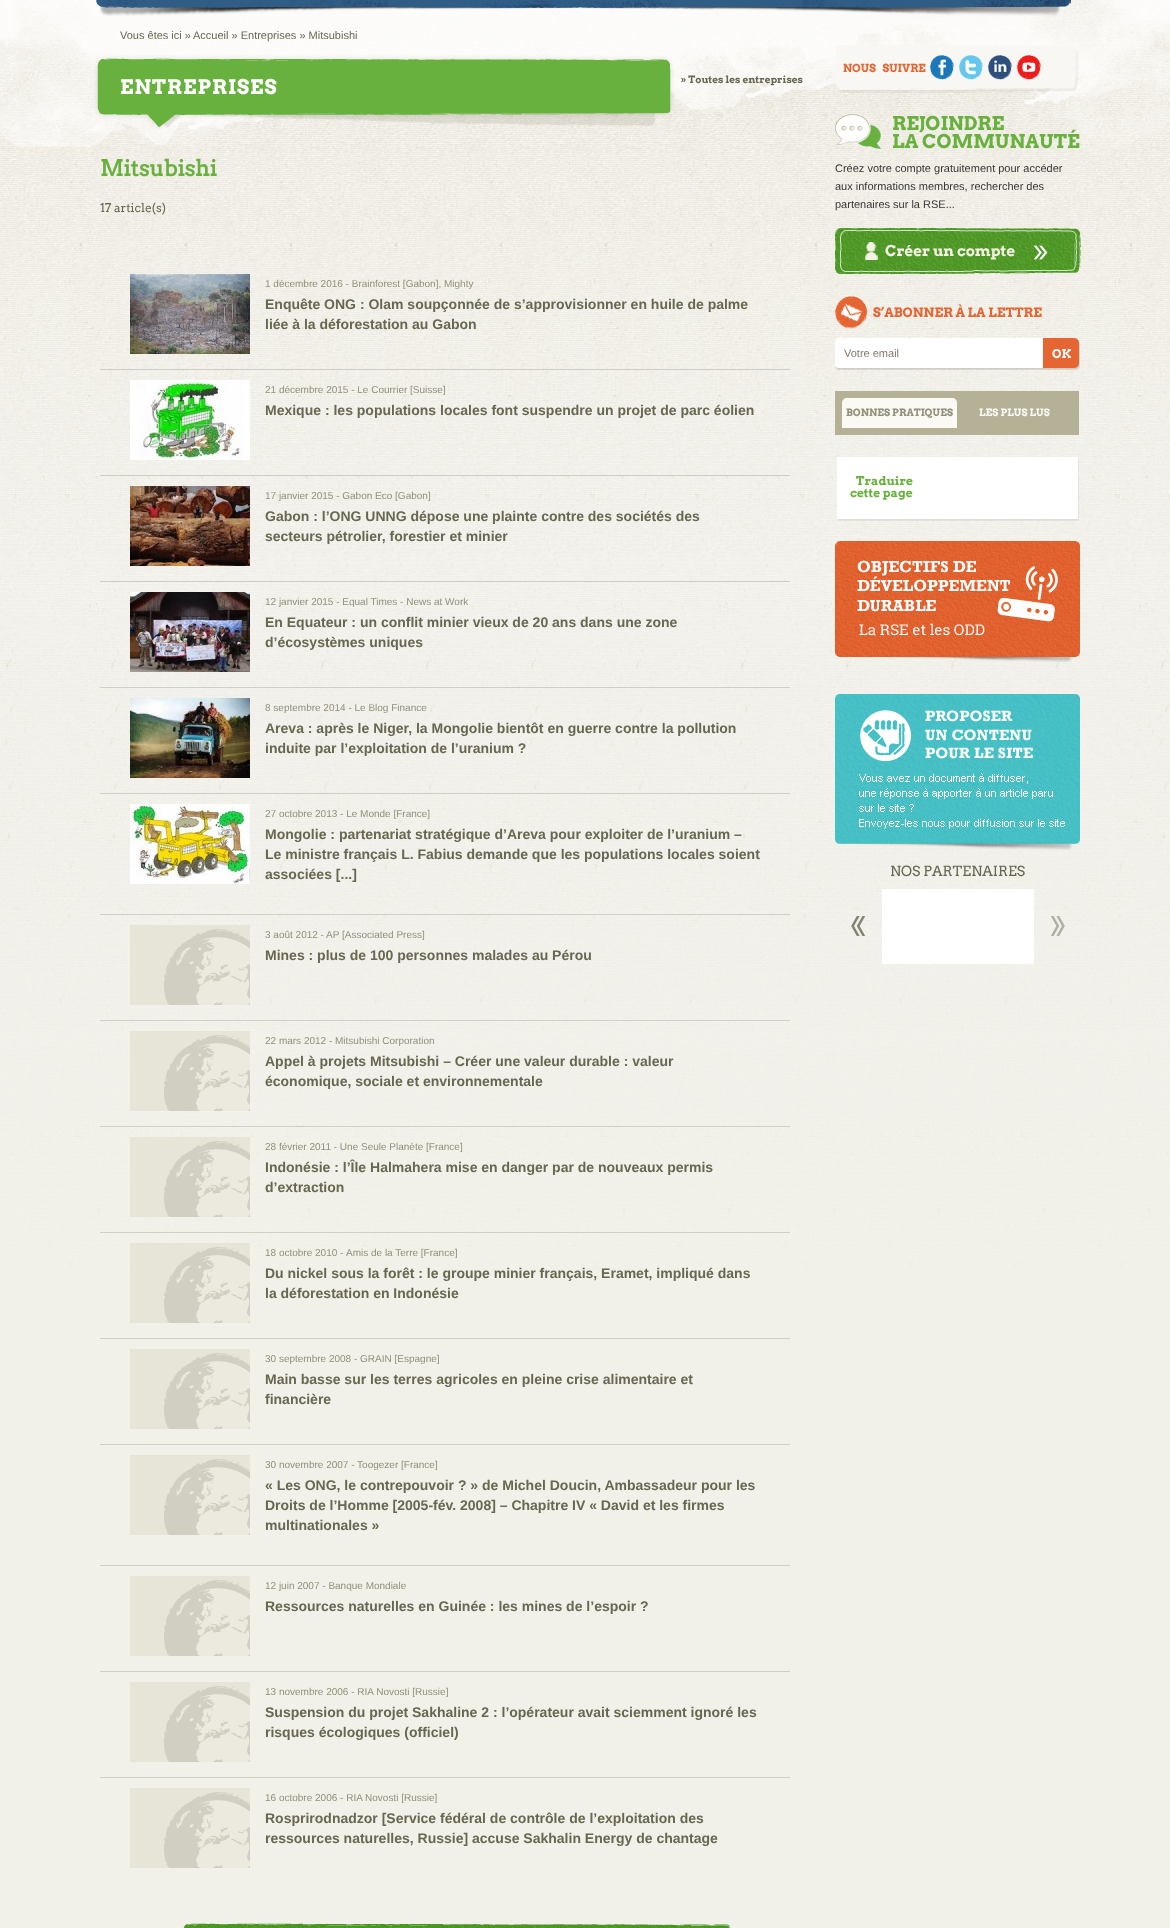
<svg xmlns="http://www.w3.org/2000/svg" width="1170" height="1928">
<style>
.a{font:11px Liberation Sans;fill:#686751}
.b{font:bold 20px Arvo;letter-spacing:1px;fill:#fff}
.c{font:bold 10px Arvo;fill:#686751}
.d{font:bold 22px 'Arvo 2';fill:#68b13e}
.e{font:12px Arvo;fill:#686751}
.f{font:10px Liberation Sans;fill:#91907a}
.g{font:bold 14px Liberation Sans;fill:#686751}
.h{font:bold 11px Arvo;fill:#e66633}
.i{font:bold 19px Arvo;fill:#68b13e}
.j{font:11px Liberation Sans;fill:#373636}
.k{font:bold 15px Arvo;fill:#f5f3e3}
.l{font:bold 13px Arvo;fill:#e66633}
.m{font:11px Liberation Sans;fill:#847b6a}
.n{font:bold 12px Arvo;fill:#fff}
.o{font:bold 10px Arvo;fill:#91907a}
.p{font:bold 10px Arvo;fill:#faf9f3}
.q{font:bold 12px Arvo;fill:#68b13e}
.r{font:14px Arvo;fill:#686751}
</style>
<rect width="100%" height="100%" fill="#f1f1e9"/>
<image href="1.png" x="0" y="0" width="1170" height="1267"/>
<image href="2.png" x="0" y="0" width="1170" height="155"/>
<image href="3.png" x="96" y="0" width="975" height="16"/>
<image href="4.png" x="94" y="55" width="579" height="14"/>
<image href="5.png" x="94" y="69" width="580" height="35"/>
<image href="6.png" x="95" y="104" width="579" height="25"/>
<path fill="#cfcfca" d="M100 369h690v1H100z"/>
<image href="7.png" x="130" y="274" width="120" height="80"/>
<path fill="#cfcfca" d="M100 475h690v1H100z"/>
<image href="8.png" x="130" y="380" width="120" height="80"/>
<path fill="#cfcfca" d="M100 581h690v1H100z"/>
<image href="9.png" x="130" y="486" width="120" height="80"/>
<path fill="#cfcfca" d="M100 687h690v1H100z"/>
<image href="10.png" x="130" y="592" width="120" height="80"/>
<path fill="#cfcfca" d="M100 793h690v1H100z"/>
<image href="11.png" x="130" y="698" width="120" height="80"/>
<path fill="#cfcfca" d="M100 914h690v1H100z"/>
<image href="12.png" x="130" y="804" width="120" height="80"/>
<path fill="#cfcfca" d="M100 1020h690v1H100z"/>
<image href="13.png" x="130" y="925" width="120" height="80"/>
<path fill="#cfcfca" d="M100 1126h690v1H100z"/>
<image href="13.png" x="130" y="1031" width="120" height="80"/>
<path fill="#cfcfca" d="M100 1232h690v1H100z"/>
<image href="13.png" x="130" y="1137" width="120" height="80"/>
<path fill="#cfcfca" d="M100 1338h690v1H100z"/>
<image href="13.png" x="130" y="1243" width="120" height="80"/>
<path fill="#cfcfca" d="M100 1444h690v1H100z"/>
<image href="13.png" x="130" y="1349" width="120" height="80"/>
<path fill="#cfcfca" d="M100 1565h690v1H100z"/>
<image href="13.png" x="130" y="1455" width="120" height="80"/>
<path fill="#cfcfca" d="M100 1671h690v1H100z"/>
<image href="13.png" x="130" y="1576" width="120" height="80"/>
<path fill="#cfcfca" d="M100 1777h690v1H100z"/>
<image href="13.png" x="130" y="1682" width="120" height="80"/>
<image href="13.png" x="130" y="1788" width="120" height="80"/>
<image href="14.png" x="183" y="1923" width="548" height="5"/>
<image href="15.png" x="835" y="45" width="244" height="48"/>
<image href="16.png" x="930" y="55" width="24" height="25"/>
<image href="17.png" x="959" y="55" width="24" height="25"/>
<image href="18.png" x="988" y="55" width="24" height="25"/>
<image href="19.png" x="1017" y="55" width="24" height="25"/>
<image href="20.png" x="835" y="114" width="47" height="35"/>
<image href="21.png" x="835" y="228" width="246" height="46"/>
<image href="22.png" x="835" y="296" width="33" height="33"/>
<image href="23.png" x="835" y="338" width="245" height="32"/>
<path fill="#b5b197" d="M835 391h244v44H835z"/>
<path fill="#faf9f3" d="M847 398h105c3 0 5 2 5 5v25h-115v-25c0-3 2-5 5-5z"/>
<image href="24.png" x="837" y="457" width="242" height="64"/>
<image href="25.png" x="835" y="541" width="245" height="121"/>
<image href="26.png" x="835" y="694" width="245" height="156"/>
<image href="27.png" x="851" y="916" width="15" height="20"/>
<path fill="#fff" d="M882 889h152v75H882z"/>
<image href="28.png" x="1051" y="916" width="14" height="20"/>
<text class="a" x="120" y="39">Vous êtes ici »</text>
<text class="a" x="193" y="39">Accueil » Entreprises » Mitsubishi</text>
<text class="b" x="120" y="94">ENTREPRISES</text>
<text class="c" x="681" y="83">» Toutes les entreprises</text>
<text class="d" x="100" y="176">Mitsubishi</text>
<text class="e" x="100" y="212">17 article(s)</text>
<text class="f" x="265" y="287">1 décembre 2016 - Brainforest [Gabon], Mighty</text>
<text class="g" x="265" y="309">Enquête ONG : Olam soupçonnée de s’approvisionner en huile de palme</text>
<text class="g" x="265" y="329">liée à la déforestation au Gabon</text>
<text class="f" x="265" y="393">21 décembre 2015 - Le Courrier [Suisse]</text>
<text class="g" x="265" y="415">Mexique : les populations locales font suspendre un projet de parc éolien</text>
<text class="f" x="265" y="499">17 janvier 2015 - Gabon Eco [Gabon]</text>
<text class="g" x="265" y="521">Gabon : l’ONG UNNG dépose une plainte contre des sociétés des</text>
<text class="g" x="265" y="541">secteurs pétrolier, forestier et minier</text>
<text class="f" x="265" y="605">12 janvier 2015 - Equal Times - News at Work</text>
<text class="g" x="265" y="627">En Equateur : un conflit minier vieux de 20 ans dans une zone</text>
<text class="g" x="265" y="647">d’écosystèmes uniques</text>
<text class="f" x="265" y="711">8 septembre 2014 - Le Blog Finance</text>
<text class="g" x="265" y="733">Areva : après le Niger, la Mongolie bientôt en guerre contre la pollution</text>
<text class="g" x="265" y="753">induite par l’exploitation de l’uranium ?</text>
<text class="f" x="265" y="817">27 octobre 2013 - Le Monde [France]</text>
<text class="g" x="265" y="839">Mongolie : partenariat stratégique d’Areva pour exploiter de l’uranium –</text>
<text class="g" x="265" y="859">Le ministre français L. Fabius demande que les populations locales soient</text>
<text class="g" x="265" y="879">associées [...]</text>
<text class="f" x="265" y="938">3 août 2012 -</text>
<text class="f" x="326" y="938">AP [Associated Press]</text>
<text class="g" x="265" y="960">Mines : plus de 100 personnes malades au Pérou</text>
<text class="f" x="265" y="1044">22 mars 2012 - Mitsubishi Corporation</text>
<text class="g" x="265" y="1066">Appel à projets Mitsubishi – Créer une valeur durable : valeur</text>
<text class="g" x="265" y="1086">économique, sociale et environnementale</text>
<text class="f" x="265" y="1150">28 février 2011 - Une Seule Planète [France]</text>
<text class="g" x="265" y="1172">Indonésie : l’Île Halmahera mise en danger par de nouveaux permis</text>
<text class="g" x="265" y="1192">d’extraction</text>
<text class="f" x="265" y="1256">18 octobre 2010 -</text>
<text class="f" x="346" y="1256">Amis de la Terre [France]</text>
<text class="g" x="265" y="1278">Du nickel sous la forêt : le groupe minier français, Eramet, impliqué dans</text>
<text class="g" x="265" y="1298">la déforestation en Indonésie</text>
<text class="f" x="265" y="1362">30 septembre 2008 - GRAIN [Espagne]</text>
<text class="g" x="265" y="1384">Main basse sur les terres agricoles en pleine crise alimentaire et</text>
<text class="g" x="265" y="1404">financière</text>
<text class="f" x="265" y="1468">30 novembre 2007 - Toogezer [France]</text>
<text class="g" x="265" y="1490">« Les ONG, le contrepouvoir ? » de Michel Doucin, Ambassadeur pour les</text>
<text class="g" x="265" y="1510">Droits de l’Homme [2005-fév. 2008] – Chapitre IV « David et les firmes</text>
<text class="g" x="265" y="1530">multinationales »</text>
<text class="f" x="265" y="1589">12 juin 2007 - Banque Mondiale</text>
<text class="g" x="265" y="1611">Ressources naturelles en Guinée : les mines de l’espoir ?</text>
<text class="f" x="265" y="1695">13 novembre 2006 - RIA Novosti [Russie]</text>
<text class="g" x="265" y="1717">Suspension du projet Sakhaline 2 : l’opérateur avait sciemment ignoré les</text>
<text class="g" x="265" y="1737">risques écologiques (officiel)</text>
<text class="f" x="265" y="1801">16 octobre 2006 - RIA Novosti [Russie]</text>
<text class="g" x="265" y="1823">Rosprirodnadzor [Service fédéral de contrôle de l’exploitation des</text>
<text class="g" x="265" y="1843">ressources naturelles, Russie] accuse Sakhalin Energy de chantage</text>
<text class="h" xml:space="preserve" x="843" y="72">NOUS   SUIVRE</text>
<text class="i" x="892" y="130">REJOINDRE</text>
<text class="i" x="892" y="148">LA COMMUNAUTÉ</text>
<text class="j" x="835" y="172">Créez votre compte gratuitement pour accéder</text>
<text class="j" x="835" y="190">aux informations membres, rechercher des</text>
<text class="j" x="835" y="208">partenaires sur la RSE...</text>
<text class="k" x="885" y="256">Créer un compte</text>
<text class="l" x="873" y="317">S’ABONNER À LA LETTRE</text>
<text class="m" x="844" y="357">Votre email</text>
<text class="n" x="1052" y="358">OK</text>
<text class="o" x="846" y="416">BONNES PRATIQUES</text>
<text class="p" x="979" y="416">LES PLUS LUS</text>
<text class="q" x="856" y="485">Traduire</text>
<text class="q" x="850" y="497">cette page</text>
<text class="r" x="890" y="876">NOS PARTENAIRES</text>
</svg>
